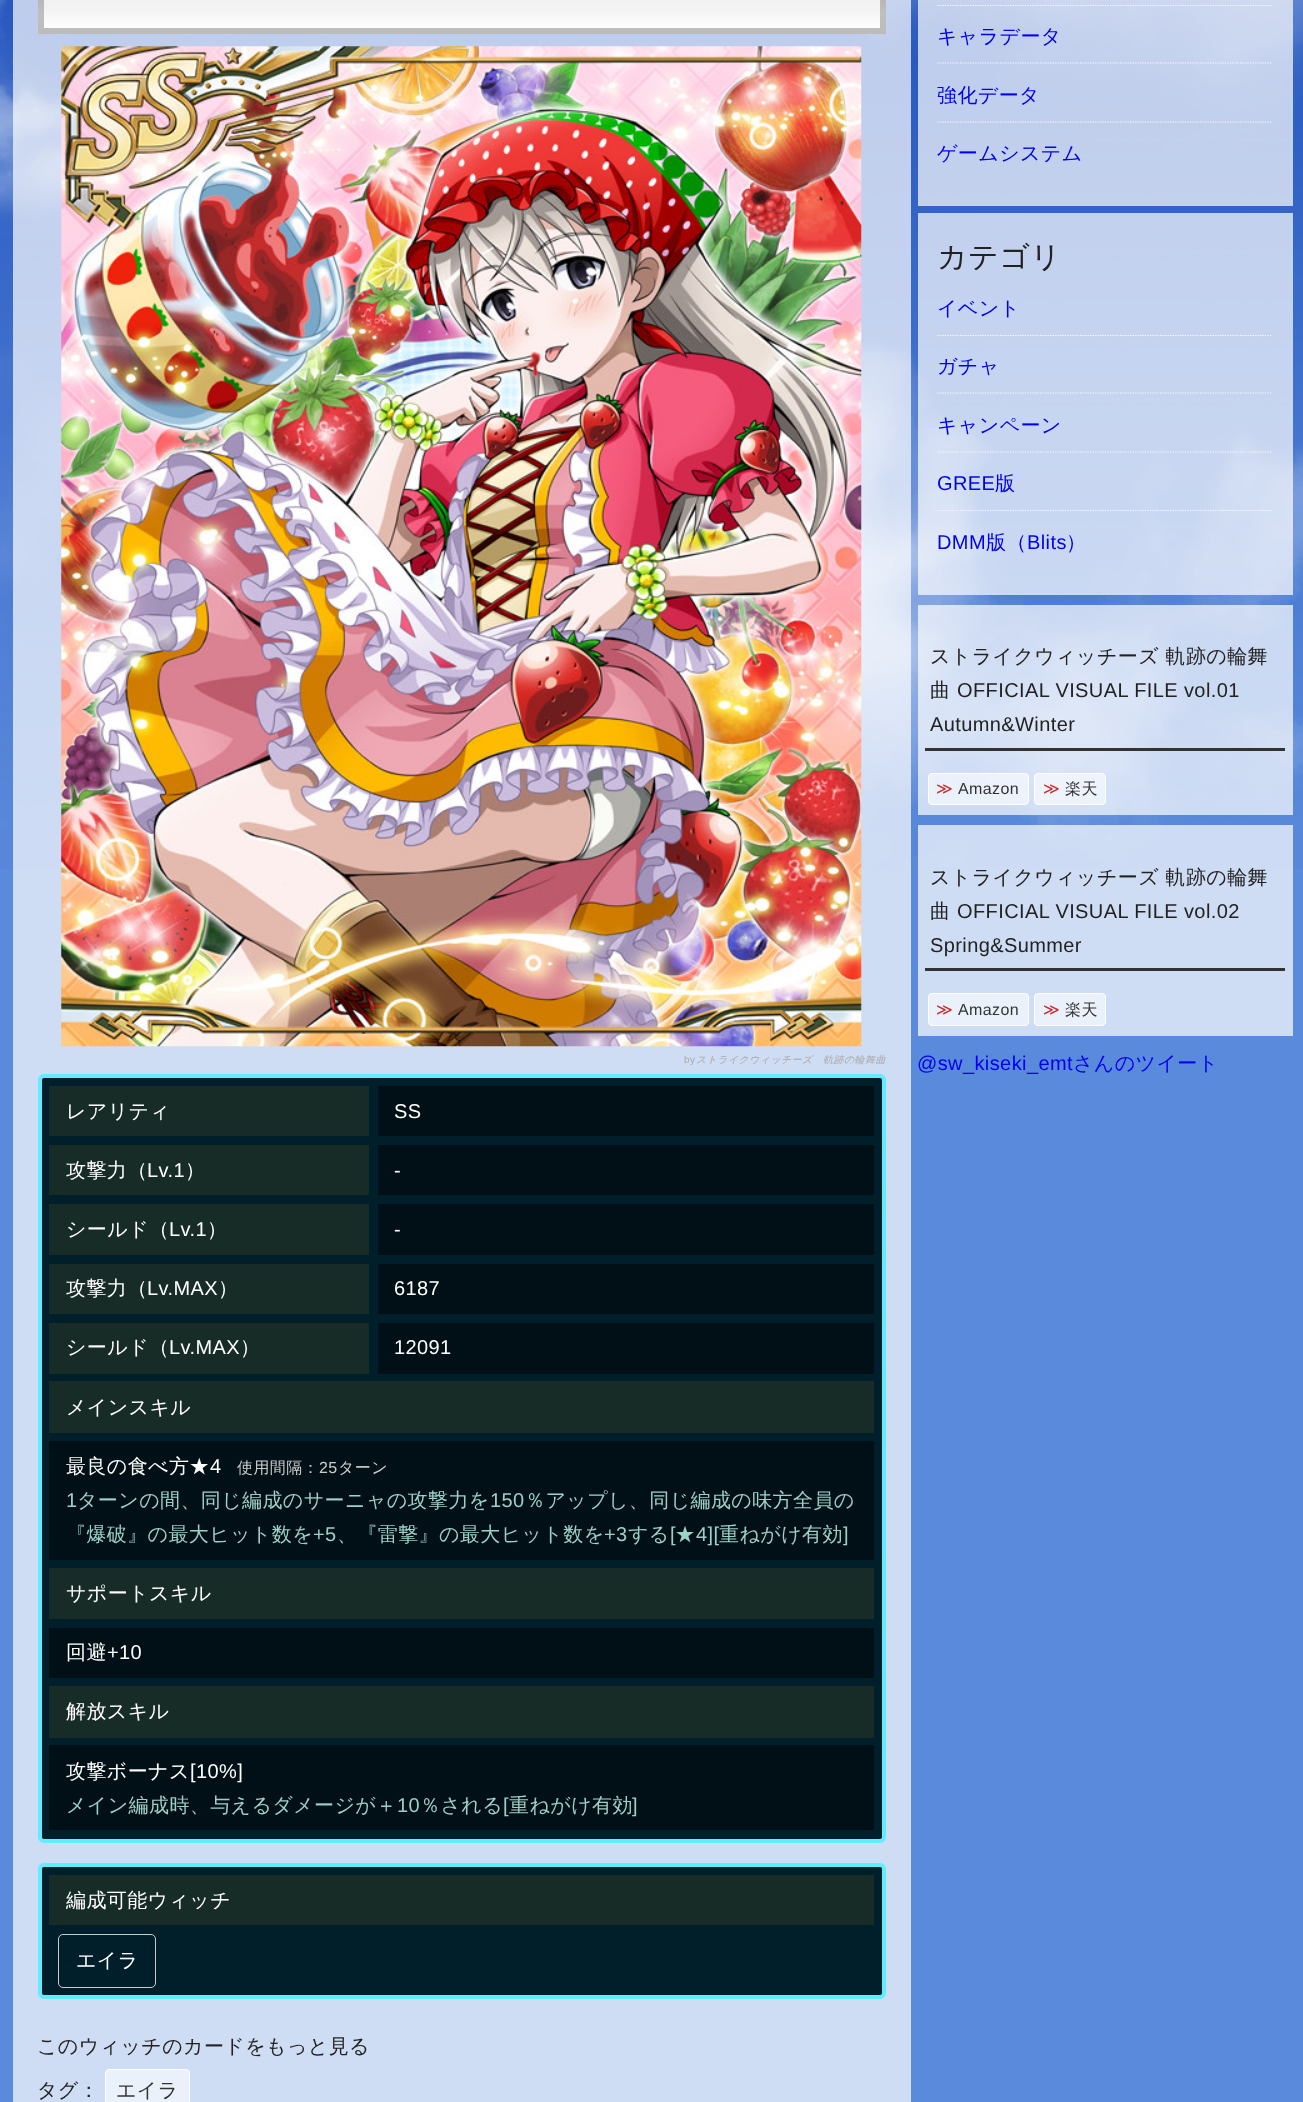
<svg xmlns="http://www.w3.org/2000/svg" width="1303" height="2102">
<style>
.a{font:500 20px WenQuanYi Zen Hei;letter-spacing:0.4px;fill:#00e}
.b{font:500 30px WenQuanYi Zen Hei;letter-spacing:0.4px;fill:#222}
.c{font:20px Liberation Sans;letter-spacing:0.4px;fill:#00e}
.d{font:500 20px WenQuanYi Zen Hei;letter-spacing:0.4px;fill:#222}
.e{font:20px Liberation Sans;letter-spacing:0.4px;fill:#222}
.f{font:16px DejaVu Sans;letter-spacing:0.4px;fill:#cc2a2a}
.g{font:16px Liberation Sans;letter-spacing:0.4px;fill:#333}
.h{font:500 16px WenQuanYi Zen Hei;letter-spacing:0.4px;fill:#333}
.i{font:10px Liberation Sans;letter-spacing:0.4px;fill:#aaa}
.j{font:italic 500 10px WenQuanYi Zen Hei;letter-spacing:0.4px;fill:#aaa}
.k{font:500 20px WenQuanYi Zen Hei;letter-spacing:0.4px;fill:#fff}
.l{font:20px Liberation Sans;letter-spacing:0.4px;fill:#fff}
.m{font:500 16px WenQuanYi Zen Hei;letter-spacing:0.4px;fill:#ccc}
.n{font:16px Liberation Sans;letter-spacing:0.4px;fill:#ccc}
.o{font:20px Liberation Sans;letter-spacing:0.4px;fill:#9dd0c7}
.p{font:500 20px WenQuanYi Zen Hei;letter-spacing:0.4px;fill:#9dd0c7}
.q{font:500 20px WenQuanYi Zen Hei;letter-spacing:0.4px;fill:#333}
</style>
<defs>
<linearGradient id="g1" gradientUnits="userSpaceOnUse" x1="462" y1="-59" x2="462" y2="34"><stop offset="0" stop-color="#d1d1d1"/><stop offset="0.28" stop-color="#a0a0a0"/><stop offset="0.77" stop-color="#bfbfbf"/><stop offset="1" stop-color="#bcbcbc"/></linearGradient>
<linearGradient id="g2" gradientUnits="userSpaceOnUse" x1="462" y1="-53" x2="462" y2="28"><stop offset="0" stop-color="#fff"/><stop offset="0.28" stop-color="#ededed"/><stop offset="0.77" stop-color="#f3f3f3"/><stop offset="1" stop-color="#fff"/></linearGradient>
</defs>
<rect width="100%" height="100%" fill="#5a8adb"/>
<image href="1.png" x="0" y="0" width="1303" height="869"/>
<path fill="#ffffffb3" d="M918 0h375v206H918z"/>
<path fill="none" stroke="#fafafa" stroke-width="1.2" stroke-dasharray="1.25 1.25" d="M937.5 5.5h335"/>
<path fill="none" stroke="#fafafa" stroke-width="1.2" stroke-dasharray="1.25 1.25" d="M937.5 63h335"/>
<path fill="none" stroke="#fafafa" stroke-width="1.2" stroke-dasharray="1.25 1.25" d="M937.5 122h335"/>
<path fill="#ffffffb3" d="M918 213h375v382H918z"/>
<path fill="none" stroke="#fafafa" stroke-width="1.2" stroke-dasharray="1.25 1.25" d="M937.5 335.5h335"/>
<path fill="none" stroke="#fafafa" stroke-width="1.2" stroke-dasharray="1.25 1.25" d="M937.5 393h335"/>
<path fill="none" stroke="#fafafa" stroke-width="1.2" stroke-dasharray="1.25 1.25" d="M937.5 452h335"/>
<path fill="none" stroke="#fafafa" stroke-width="1.2" stroke-dasharray="1.25 1.25" d="M937.5 510.5h335"/>
<path fill="#ffffffb3" d="M918 605h375v210H918z"/>
<path fill="#333" d="M925 748h360v3H925z"/>
<rect fill="#ffffff99" stroke="#fff" x="928.5" y="773.5" width="100" height="31" rx="3.5"/>
<rect fill="#ffffff99" stroke="#fff" x="1034.5" y="773.5" width="71" height="31" rx="3.5"/>
<path fill="#ffffffb3" d="M918 825h375v211H918z"/>
<path fill="#333" d="M925 968h360v3H925z"/>
<rect fill="#ebf1fb" stroke="#fff" x="928.5" y="993.5" width="100" height="32" rx="3.5"/>
<rect fill="#ebf1fb" stroke="#fff" x="1034.5" y="993.5" width="71" height="32" rx="3.5"/>
<path fill="#ffffffb3" d="M13 0h898v2102H13z"/>
<path fill="url(#g1)" d="M38 0h848v34H38z"/>
<path fill="url(#g2)" d="M44 0h836v28H44z"/>
<image href="2.png" x="61" y="46" width="801" height="1001"/>
<rect fill="#001f2b" stroke="#60edff" stroke-width="4" x="40" y="1076" width="844" height="765" rx="4"/>
<path fill="#182c27" d="M49 1086h320v50H49z"/>
<path fill="#001016" d="M378 1086h496v50H378z"/>
<path fill="#182c27" d="M49 1145h320v50H49z"/>
<path fill="#001016" d="M378 1145h496v50H378z"/>
<path fill="#182c27" d="M49 1204h320v51H49z"/>
<path fill="#001016" d="M378 1204h496v51H378z"/>
<path fill="#182c27" d="M49 1264h320v50H49z"/>
<path fill="#001016" d="M378 1264h496v50H378z"/>
<path fill="#182c27" d="M49 1323h320v51H49z"/>
<path fill="#001016" d="M378 1323h496v51H378z"/>
<path fill="#182c27" d="M49 1381h825v52H49z"/>
<path fill="#001016" d="M49 1441h825v119H49z"/>
<path fill="#182c27" d="M49 1568h825v51H49z"/>
<path fill="#001016" d="M49 1628h825v50H49z"/>
<path fill="#182c27" d="M49 1686h825v52H49z"/>
<path fill="#001016" d="M49 1745h825v85H49z"/>
<rect fill="#001f2b" stroke="#60edff" stroke-width="4" x="40" y="1865" width="844" height="132" rx="4"/>
<path fill="#182c27" d="M49 1875h825v50H49z"/>
<rect fill="none" stroke="#ccc" x="58.5" y="1934.5" width="97" height="53" rx="4.5"/>
<rect fill="#ebf1fb" stroke="#fff" x="105.5" y="2069.5" width="84" height="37" rx="3.5"/>
<text class="a" x="937" y="43">キャラデータ</text>
<text class="a" x="937" y="102">強化データ</text>
<text class="a" x="937" y="160">ゲームシステム</text>
<text class="b" x="937" y="267">カテゴリ</text>
<text class="a" x="937" y="315">イベント</text>
<text class="a" x="937" y="373">ガチャ</text>
<text class="a" x="937" y="432">キャンペーン</text>
<text class="c" x="937" y="490">GREE</text>
<text class="a" x="995" y="490">版</text>
<text class="c" x="937" y="549">DMM</text>
<text class="a" x="986" y="549">版（</text>
<text class="c" x="1027" y="549">Blits</text>
<text class="a" x="1066" y="549">）</text>
<text class="d" x="930" y="663">ストライクウィッチーズ 軌跡の輪舞</text>
<text class="d" x="930" y="697">曲</text>
<text class="e" x="957" y="697">OFFICIAL VISUAL FILE vol.01</text>
<text class="e" x="930" y="731">Autumn&amp;Winter</text>
<text class="f" x="936" y="794">≫</text>
<text class="g" x="958" y="794">Amazon</text>
<text class="f" x="1043" y="794">≫</text>
<text class="h" x="1065" y="794">楽天</text>
<text class="d" x="930" y="884">ストライクウィッチーズ 軌跡の輪舞</text>
<text class="d" x="930" y="918">曲</text>
<text class="e" x="957" y="918">OFFICIAL VISUAL FILE vol.02</text>
<text class="e" x="930" y="952">Spring&amp;Summer</text>
<text class="f" x="936" y="1015">≫</text>
<text class="g" x="958" y="1015">Amazon</text>
<text class="f" x="1043" y="1015">≫</text>
<text class="h" x="1065" y="1015">楽天</text>
<text class="c" x="917" y="1070">@sw_kiseki_emt</text>
<text class="a" x="1073" y="1070">さんのツイート</text>
<text class="i" x="684" y="1063">by</text>
<text class="j" x="696" y="1063">ストライクウィッチーズ　軌跡の輪舞曲</text>
<text class="k" x="66" y="1118">レアリティ</text>
<text class="l" x="394" y="1118">SS</text>
<text class="k" x="66" y="1177">攻撃力（</text>
<text class="l" x="147" y="1177">Lv.1</text>
<text class="k" x="185" y="1177">）</text>
<text class="l" x="394" y="1177">-</text>
<text class="k" x="66" y="1236">シールド（</text>
<text class="l" x="169" y="1236">Lv.1</text>
<text class="k" x="207" y="1236">）</text>
<text class="l" x="394" y="1236">-</text>
<text class="k" x="66" y="1295">攻撃力（</text>
<text class="l" x="147" y="1295">Lv.MAX</text>
<text class="k" x="218" y="1295">）</text>
<text class="l" x="394" y="1295">6187</text>
<text class="k" x="66" y="1354">シールド（</text>
<text class="l" x="169" y="1354">Lv.MAX</text>
<text class="k" x="240" y="1354">）</text>
<text class="l" x="394" y="1354">12091</text>
<text class="k" x="66" y="1414">メインスキル</text>
<text class="k" x="66" y="1473">最良の食べ方★</text>
<text class="l" x="210" y="1473">4</text>
<text class="m" x="237" y="1473">使用間隔：</text>
<text class="n" x="319" y="1473">25</text>
<text class="m" x="338" y="1473">ターン</text>
<text class="o" x="66" y="1507">1</text>
<text class="p" x="77" y="1507">ターンの間、同じ編成のサーニャの攻撃力を</text>
<text class="o" x="490" y="1507">150</text>
<text class="p" x="525" y="1507">％アップし、同じ編成の味方全員の</text>
<text class="p" x="66" y="1541">『爆破』の最大ヒット数を</text>
<text class="o" x="313" y="1541">+5</text>
<text class="p" x="337" y="1541">、『雷撃』の最大ヒット数を</text>
<text class="o" x="604" y="1541">+3</text>
<text class="p" x="628" y="1541">する</text>
<text class="o" x="670" y="1541">[</text>
<text class="p" x="675" y="1541">★</text>
<text class="o" x="696" y="1541">4][</text>
<text class="p" x="719" y="1541">重ねがけ有効</text>
<text class="o" x="843" y="1541">]</text>
<text class="k" x="66" y="1600">サポートスキル</text>
<text class="k" x="66" y="1659">回避</text>
<text class="l" x="107" y="1659">+10</text>
<text class="k" x="66" y="1718">解放スキル</text>
<text class="k" x="66" y="1778">攻撃ボーナス</text>
<text class="l" x="190" y="1778">[10%]</text>
<text class="p" x="66" y="1812">メイン編成時、与えるダメージが＋</text>
<text class="o" x="397" y="1812">10</text>
<text class="p" x="420" y="1812">％される</text>
<text class="o" x="503" y="1812">[</text>
<text class="p" x="509" y="1812">重ねがけ有効</text>
<text class="o" x="632" y="1812">]</text>
<text class="k" x="66" y="1907">編成可能ウィッチ</text>
<text class="k" x="76" y="1967">エイラ</text>
<text class="d" x="37" y="2053">このウィッチのカードをもっと見る</text>
<text class="d" x="37" y="2097">タグ：</text>
<text class="q" x="116" y="2097">エイラ</text>
</svg>
